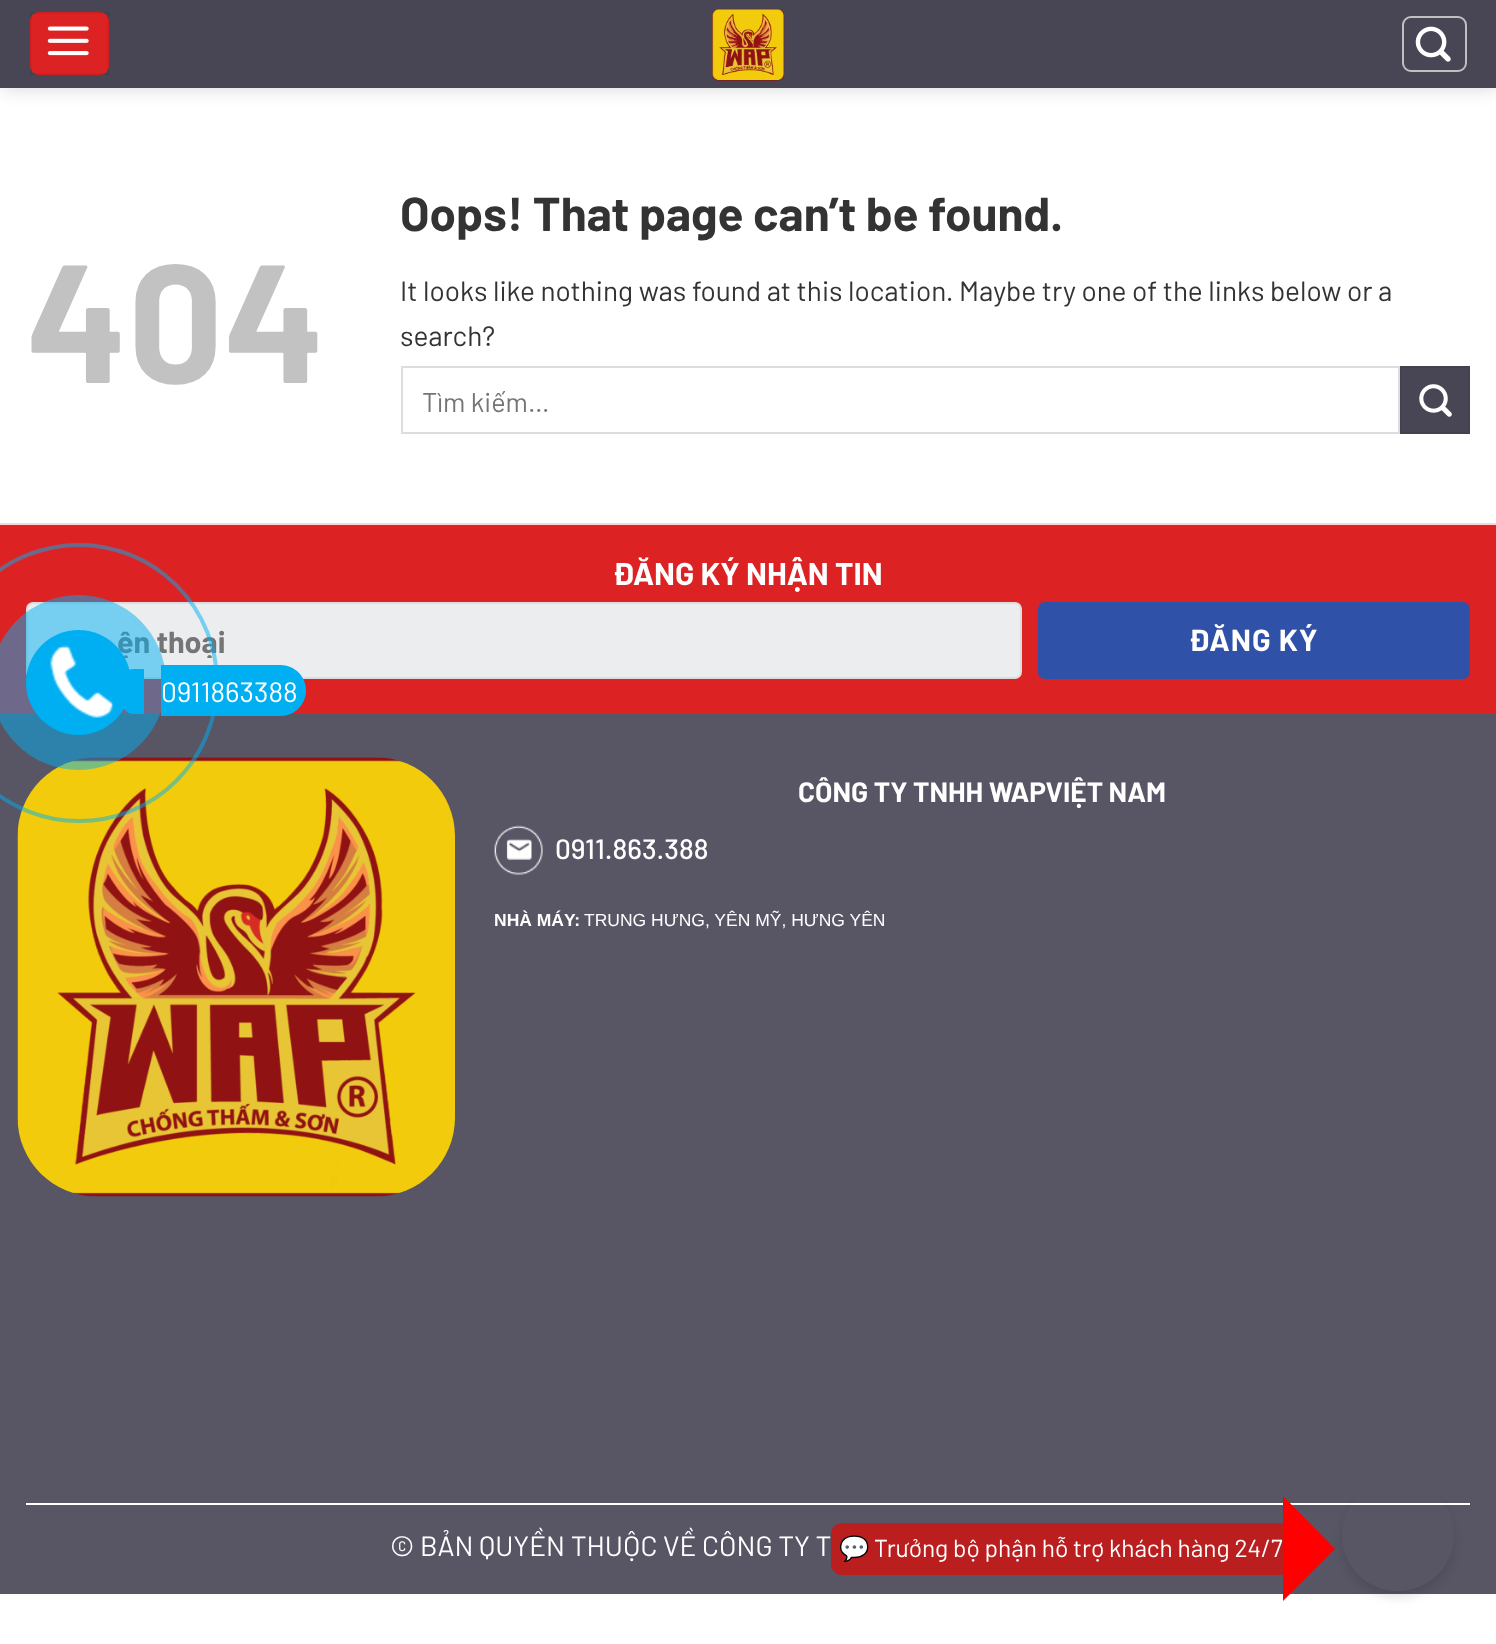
<svg xmlns="http://www.w3.org/2000/svg" width="1496" height="1644">
<style>
.a{font:bold 168px Barlow;fill:#c2c2c2}
.b{font:bold 47.6px Barlow;fill:#333}
.c{font:28px Barlow;fill:#333}
.d{font:27px Barlow;fill:#757575}
.e{font:bold 31.5px Barlow;fill:#fff}
.f{font:bold 30.5px Barlow;fill:#757575}
.g{font:bold 30.5px Barlow;letter-spacing:1px;fill:#fff}
.h{font:bold 28px Barlow;fill:#fff}
.i{font:500 28px Barlow;fill:#fff}
.j{font:bold 17.5px Liberation Sans;fill:#fff}
.k{font:17.5px Liberation Sans;fill:#fff}
.l{font:28px Barlow;fill:#fff}
.m{font:24.5px Noto Color Emoji;fill:#fff}
.n{font:24.5px Barlow;fill:#fff}
</style>
<defs>
<clipPath id="clip1"><path d="M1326 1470h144v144h-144zm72 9c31 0 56 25 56 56c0 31-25 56-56 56c-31 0-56-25-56-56c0-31 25-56 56-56z" clip-rule="evenodd"/></clipPath>
<clipPath id="clip2"><path d="M51 623h947v35H51z"/></clipPath>
</defs>
<rect width="100%" height="100%" fill="#fff"/>
<path fill="#00000026" filter="blur(9px)" d="M2 2h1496v87H2z"/>
<path fill="#484554" d="M0 0h1496v88H0z"/>
<rect fill="#dd2224" x="30" y="12" width="79" height="63" rx="9"/>
<path fill="none" stroke="#0000000d" stroke-width="2" d="M31 13h77v61H31z"/>
<image href="1.png" x="47" y="26" width="42" height="30"/>
<image href="2.png" x="712" y="8" width="73" height="73"/>
<rect fill="none" stroke="#c0c0c0" stroke-width="2" x="1403" y="17" width="63" height="54" rx="8"/>
<image href="3.png" x="1415" y="26" width="36" height="36"/>
<path fill="none" stroke="#ddd" stroke-width="2" d="M402 367h997v66H402z"/>
<path fill="#484554" stroke="#444250" stroke-width="2" d="M1401 367h68v66H1401z"/>
<image href="4.png" x="1419" y="384" width="33" height="33"/>
<path fill="#ffd2d4" d="M0 523h1496v2H0z"/>
<path fill="#dd2224" d="M0 525h1496v189H0z"/>
<rect fill="#ecedef" stroke="#ddd" stroke-width="2" x="27" y="603" width="994" height="75" rx="6"/>
<rect fill="#3051a8" x="1038" y="602" width="432" height="77" rx="7"/>
<path fill="#585565" d="M0 714h1496v880H0z"/>
<image href="5.png" x="17" y="757" width="438" height="440"/>
<image href="6.png" x="494" y="825" width="49" height="50"/>
<path fill="#fff" d="M26 1503h1444v2H26z"/>
<rect fill="#bb1e1e" x="831" y="1523" width="459" height="52" rx="11"/>
<path fill="#f00" d="M1283 1601v-105l52 53z"/>
<g clip-path="url(#clip1)">
<rect fill="#0000001a" filter="blur(5px)" x="1342" y="1486" width="112" height="112" rx="56"/>
</g>
<text class="a" x="26" y="383">404</text>
<text class="b" x="400" y="231">Oops! That page can’t be found.</text>
<text class="c" x="400" y="301">It looks like nothing was found at this location. Maybe try one of the links below or a</text>
<text class="c" x="400" y="346">search?</text>
<text class="d" x="422" y="412">Tìm kiếm…</text>
<text class="e" x="613" y="585">ĐĂNG KÝ NHẬN TIN</text>
<g clip-path="url(#clip2)">
<text class="f" x="117" y="653">ện thoại</text>
</g>
<text class="g" x="1189" y="651">ĐĂNG KÝ</text>
<text class="h" x="798" y="802">CÔNG TY TNHH WAPVIỆT NAM</text>
<text class="i" x="555" y="859">0911.863.388</text>
<text class="j" x="494" y="926">NHÀ MÁY:</text>
<text class="k" x="584" y="926">TRUNG HƯNG, YÊN MỸ, HƯNG YÊN</text>
<text class="l" x="390" y="1556">© BẢN QUYỀN THUỘC VỀ CÔNG TY T</text>
<circle fill="none" stroke="#00aff280" stroke-width="4" cx="79" cy="683" r="138"/>
<circle fill="#00aff280" cx="78.5" cy="682.5" r="87.5"/>
<circle fill="#00aff2" cx="78.5" cy="682.5" r="52.5"/>
<image href="7.png" x="50" y="645" width="64" height="73"/>
<path fill="#00aff2" d="M133.5 669h10.5v45h-10.5c-6 0-10.5-4.5-10.5-10.5v-24c0-6 4.5-10.5 10.5-10.5z"/>
<path fill="#00aff2" d="M161 665h119.5c14 0 25.5 11.5 25.5 25.5c0 14-11.5 25.5-25.5 25.5h-119.5z"/>
<text class="l" x="161" y="702">0911863388</text>
<text class="m" x="839" y="1557">💬</text>
<text class="n" x="874" y="1557">Trưởng bộ phận hỗ trợ khách hàng 24/7</text>
</svg>
